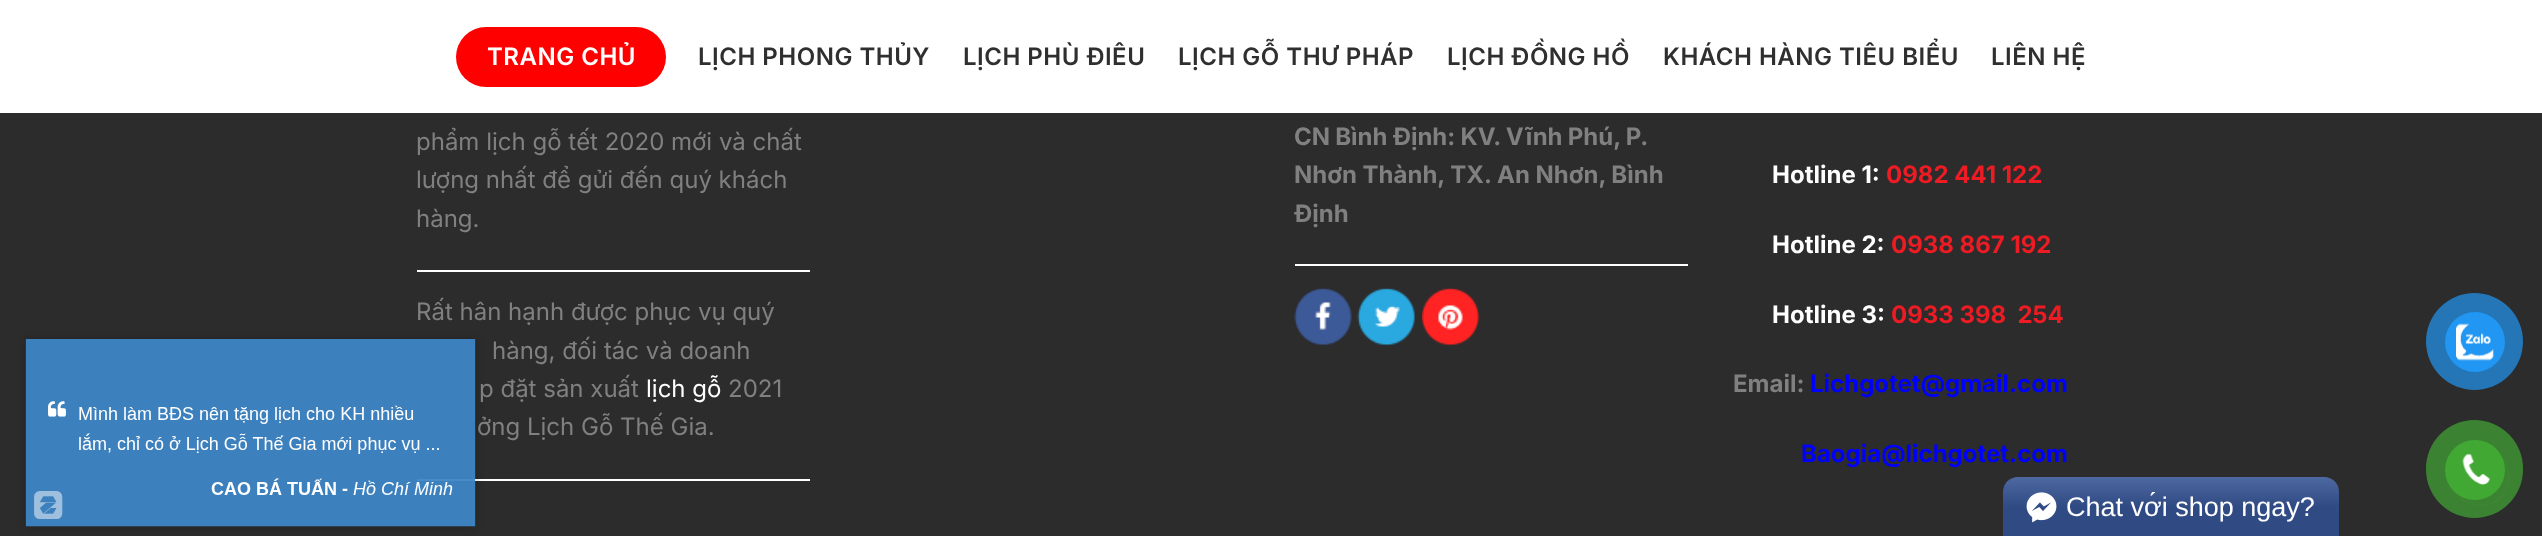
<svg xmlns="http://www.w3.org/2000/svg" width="2542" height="536">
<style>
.a{font:600 24px Inter;letter-spacing:0.5px;fill:#fff}
.b{font:600 24px Inter;letter-spacing:0.5px;fill:#2f2f2f}
.c{font:24px Inter;fill:#808080}
.d{font:24px Inter;fill:#fff}
.e{font:bold 24px Inter;fill:#808080}
.f{font:bold 24px Inter;fill:#fff}
.g{font:bold 24px Inter;fill:#ed1c24}
.h{font:bold 24px Inter;fill:#00f}
.i{font:27px Liberation Sans;fill:#fff}
</style>
<defs>
<clipPath id="clip1"><path d="M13 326h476v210h-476zm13 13h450v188h-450z" clip-rule="evenodd"/></clipPath>
<linearGradient id="g1" gradientUnits="userSpaceOnUse" x1="2171" y1="477" x2="2171" y2="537"><stop offset="0" stop-color="#4e69a2"/><stop offset="0.5" stop-color="#304b84"/></linearGradient>
</defs>
<rect width="100%" height="100%" fill="#2c2c2c"/>
<path fill="#fff" d="M417 479h393v2H417z"/>
<g clip-path="url(#clip1)">
<path fill="#00000033" filter="blur(4px)" d="M26 339h450v188H26z"/>
</g>
<image href="1.png" x="25" y="339" width="451" height="188"/>
<path fill="#fff" d="M0 0h2542v113H0z"/>
<rect fill="#f00" x="456" y="27" width="210" height="60" rx="30"/>
<path fill="#fff" d="M417 270h393v2H417z"/>
<path fill="#fff" d="M1295 264h393v2H1295z"/>
<image href="2.png" x="1294" y="288" width="58" height="58"/>
<image href="3.png" x="1357" y="287" width="58" height="59"/>
<image href="4.png" x="1422" y="287" width="57" height="59"/>
<rect fill="none" stroke="#343131" stroke-width="3" x="2452.5" y="450.5" width="56" height="55" rx="27.5"/>
<path fill="url(#g1)" d="M2018 477h306c8.5 0 15 6.5 15 15v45h-336v-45c0-8.5 6.5-15 15-15z"/>
<image href="5.png" x="2026" y="492" width="31" height="31"/>
<circle fill="#2476b7" cx="2474.5" cy="341.5" r="48.5"/>
<circle fill="#2196f3" cx="2475" cy="342" r="30"/>
<image href="6.png" x="2456" y="323" width="38" height="38"/>
<rect fill="#41a834b3" x="2426" y="420" width="97" height="98" rx="48.5"/>
<circle fill="#41a834" cx="2475" cy="470" r="30"/>
<image href="7.png" x="2462" y="453" width="28" height="32"/>
<text class="a" x="487" y="65">TRANG CHỦ</text>
<text class="b" x="698" y="65">LỊCH PHONG THỦY</text>
<text class="b" x="963" y="65">LỊCH PHÙ ĐIÊU</text>
<text class="b" x="1178" y="65">LỊCH GỖ THƯ PHÁP</text>
<text class="b" x="1447" y="65">LỊCH ĐỒNG HỒ</text>
<text class="b" x="1663" y="65">KHÁCH HÀNG TIÊU BIỂU</text>
<text class="b" x="1991" y="65">LIÊN HỆ</text>
<text class="c" x="416" y="150">phẩm lịch gỗ tết 2020 mới và chất</text>
<text class="c" x="416" y="188">lượng nhất để gửi đến quý khách</text>
<text class="c" x="416" y="227">hàng.</text>
<text class="c" x="416" y="320">Rất hân hạnh được phục vụ quý</text>
<text class="c" x="492" y="359">hàng, đối tác và doanh</text>
<text class="c" x="479" y="397">p đặt sản xuất</text>
<text class="d" x="646" y="397">lịch gỗ</text>
<text class="c" x="728" y="397">2021</text>
<text class="c" x="477" y="435">ởng Lịch Gỗ Thế Gia.</text>
<text class="e" x="1294" y="145" word-spacing="-0.5">CN Bình Định: KV. Vĩnh Phú, P.</text>
<text class="e" x="1294" y="183">Nhơn Thành, TX. An Nhơn, Bình</text>
<text class="e" x="1294" y="222">Định</text>
<text class="f" x="1772" y="183">Hotline 1:</text>
<text class="g" x="1886" y="183">0982 441 122</text>
<text class="f" x="1772" y="253">Hotline 2:</text>
<text class="g" x="1891" y="253">0938 867 192</text>
<text class="f" x="1772" y="323">Hotline 3:</text>
<text class="g" xml:space="preserve" x="1891" y="323">0933 398  254</text>
<text class="e" x="1733" y="392">Email:</text>
<text class="h" x="1810" y="392">Lichgotet@gmail.com</text>
<text class="h" x="1801" y="462">Baogia@lichgotet.com</text>
<text class="i" x="2066" y="516">Chat với shop ngay?</text>
</svg>
